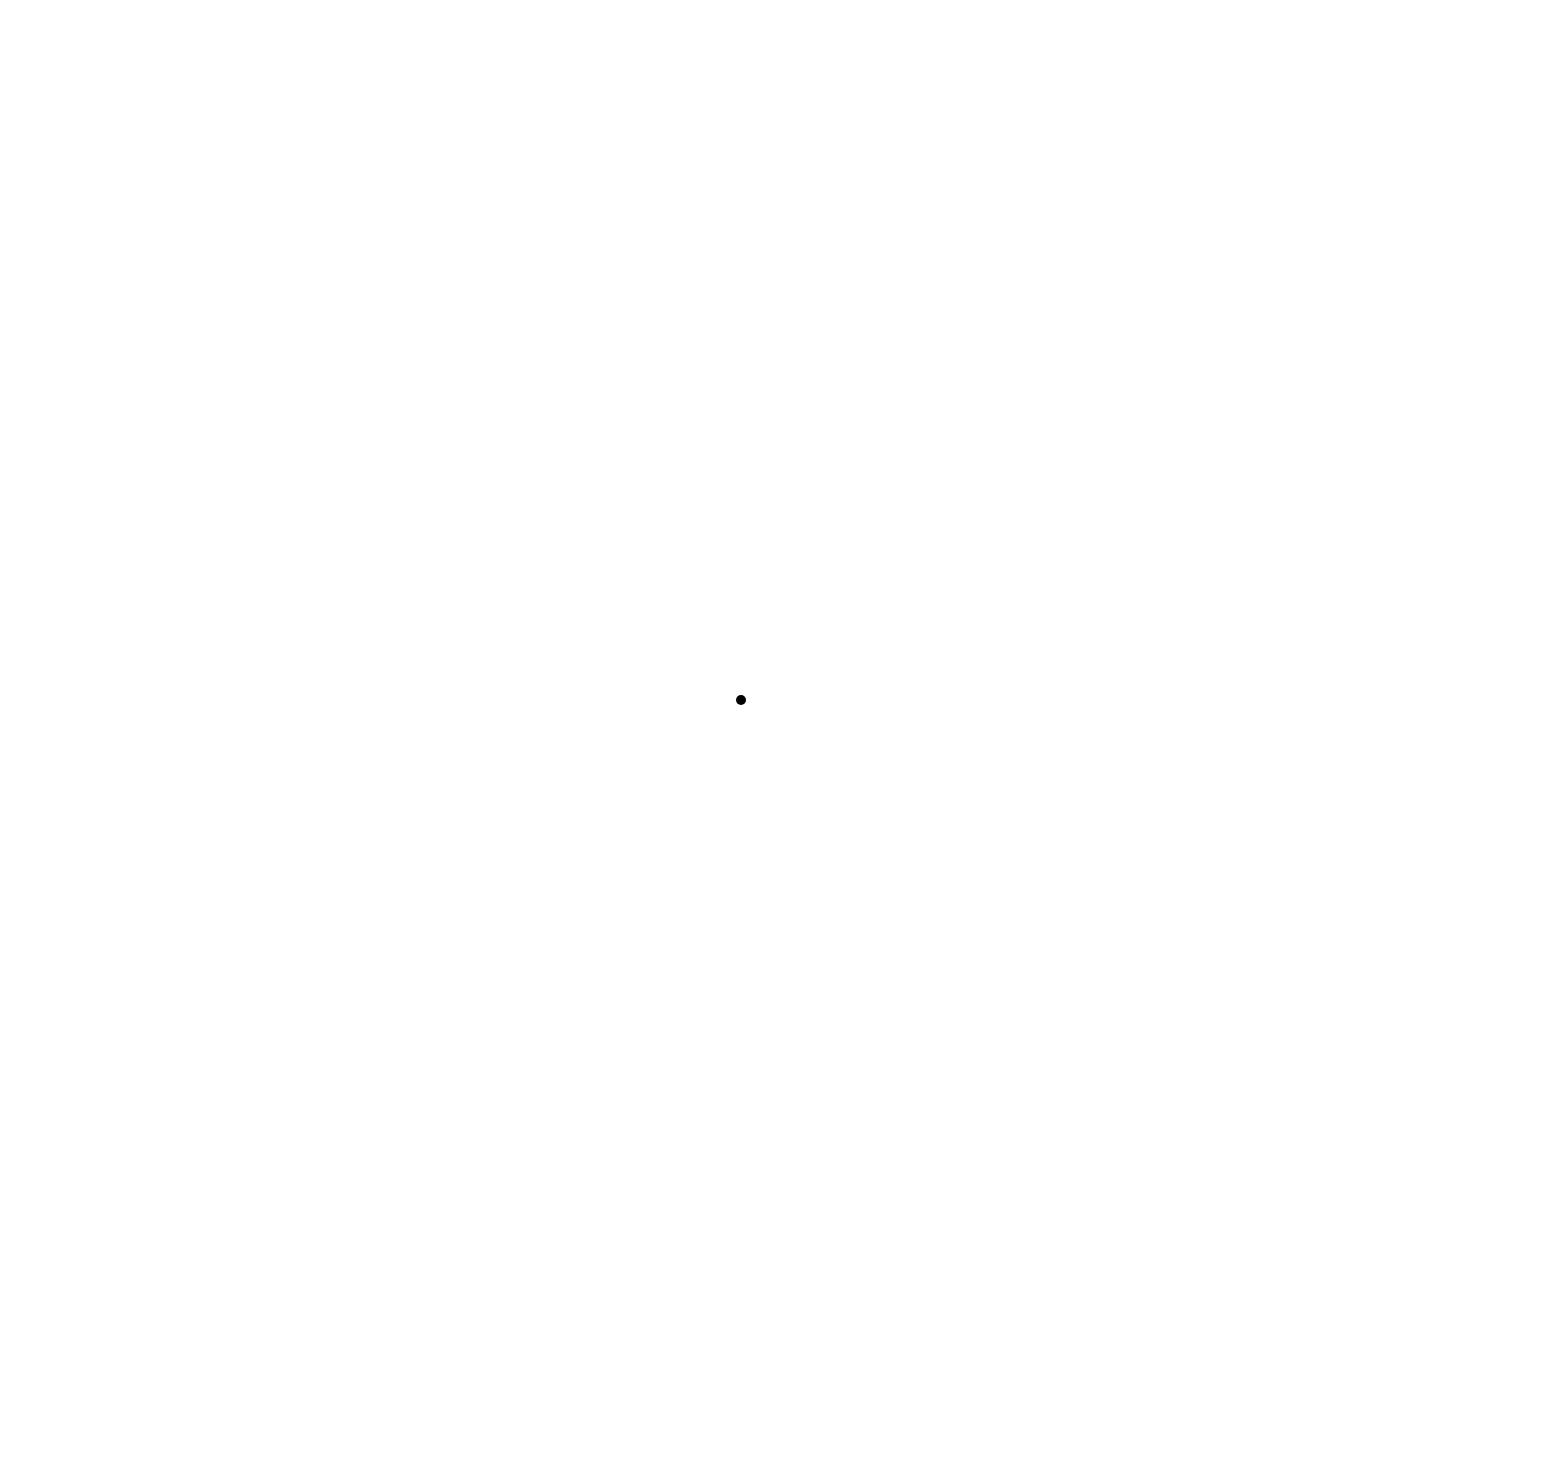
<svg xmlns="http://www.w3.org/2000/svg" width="1552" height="1474">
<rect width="100%" height="100%" fill="#fff"/>
<circle fill="#000" cx="741" cy="700" r="5"/>
</svg>
